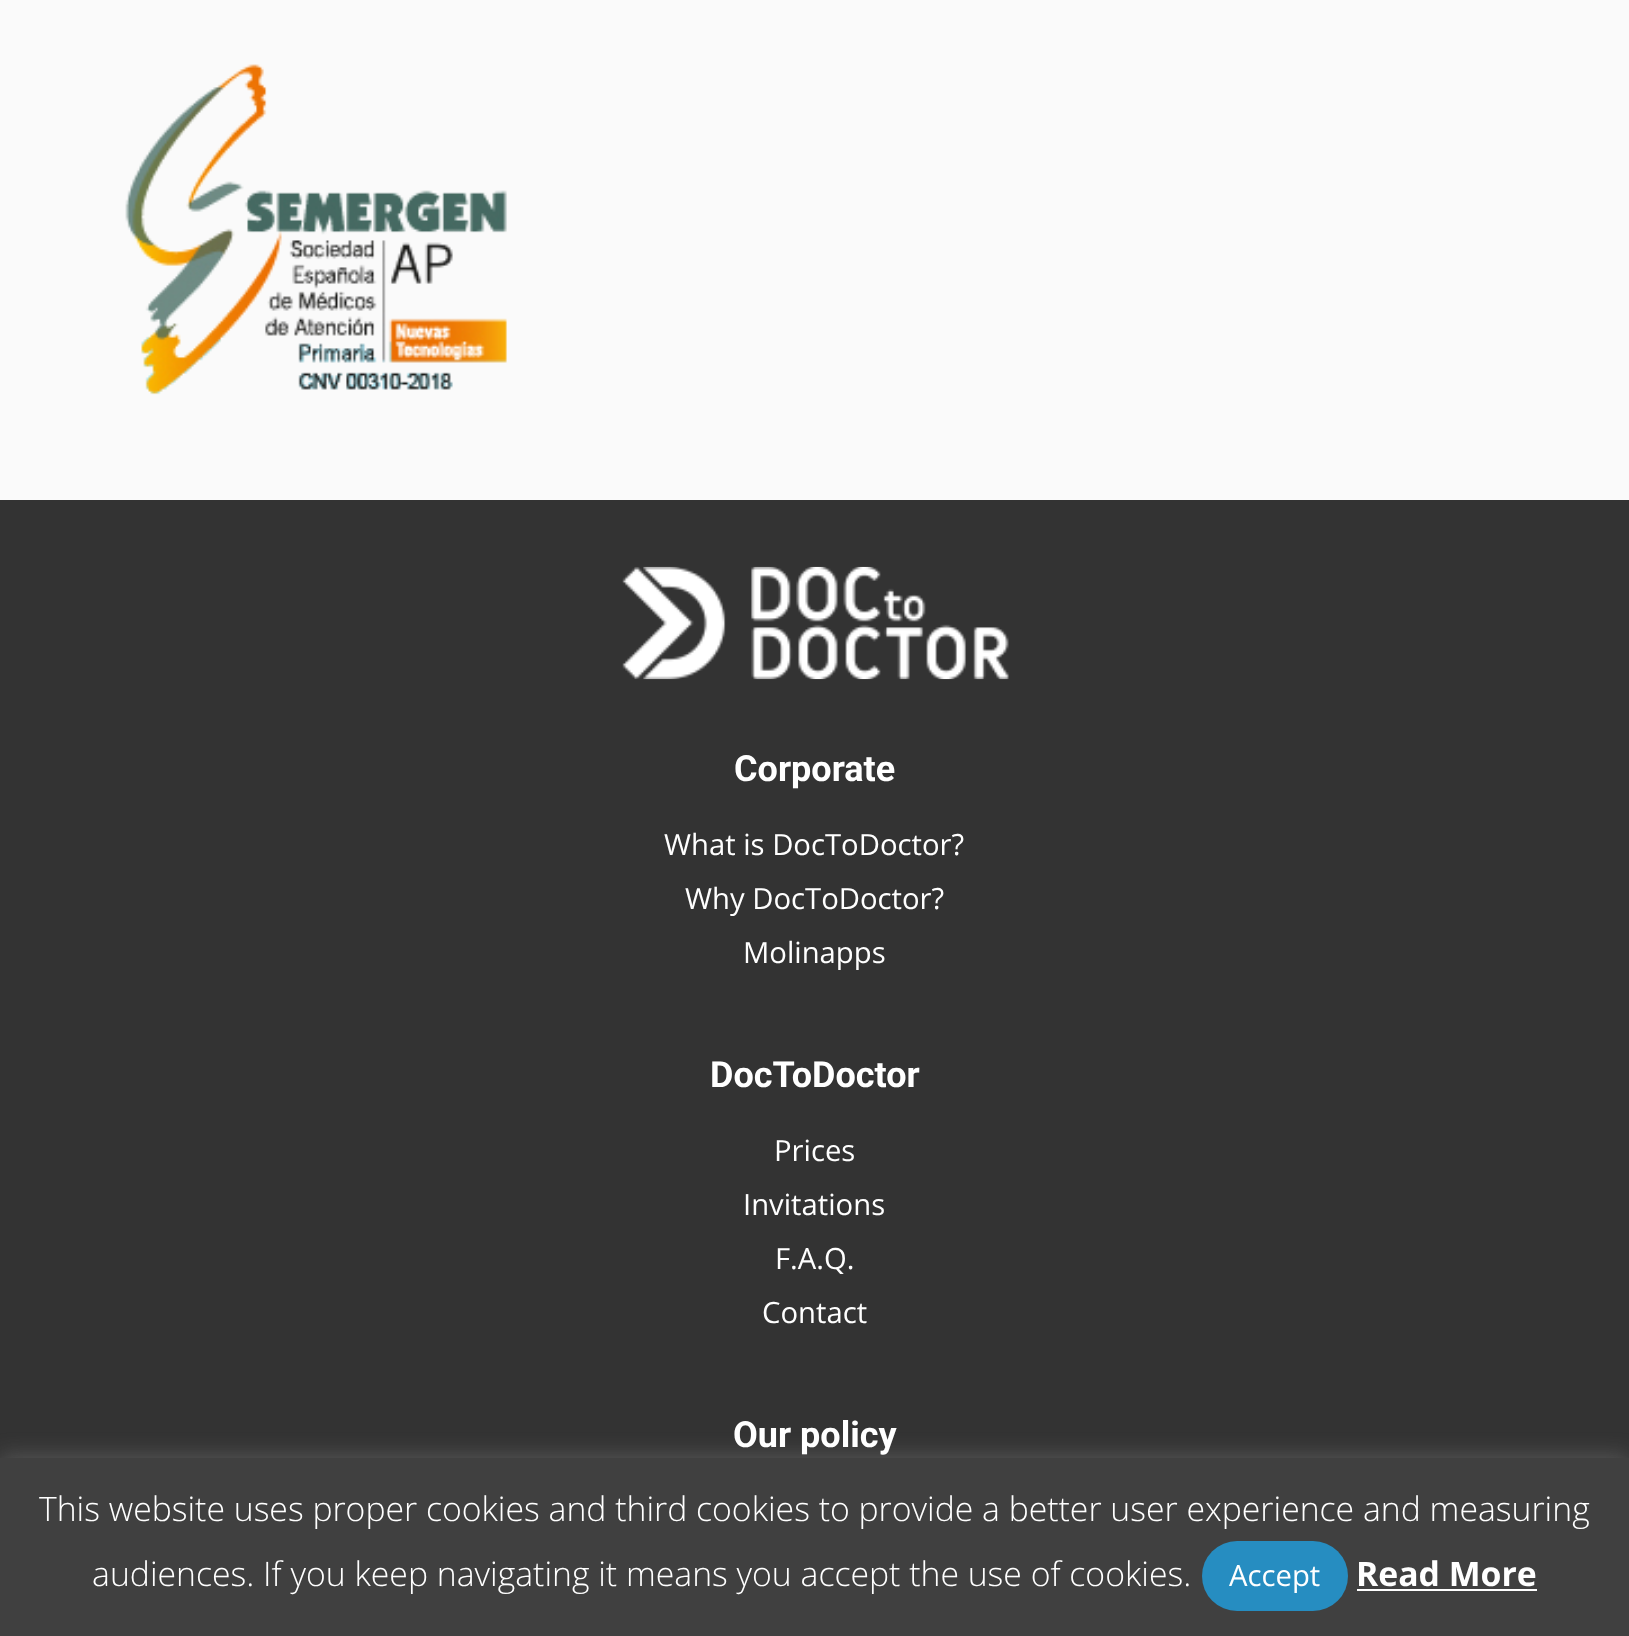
<svg xmlns="http://www.w3.org/2000/svg" width="1629" height="1636">
<style>
.a{font:bold 36px Roboto;fill:#fff}
.b{font:29.25px Open Sans;fill:#fff}
.c{font:300 33.75px Open Sans;fill:#fff}
.d{font:bold 33.75px Open Sans;fill:#fff}
</style>
<rect width="100%" height="100%" fill="#fafafa"/>
<image href="1.png" x="125" y="64" width="382" height="331"/>
<path fill="#333" d="M0 500h1629v958H0z"/>
<image href="2.png" x="622" y="566" width="387" height="114"/>
<path fill="#acabab4d" filter="blur(11px)" d="M0 1456h1629v180H0z"/>
<path fill="#404040" d="M0 1458h1629v178H0z"/>
<rect fill="#268dc1" x="1202" y="1541" width="146" height="70" rx="35"/>
<path fill="#fff" d="M1357 1589h180v2H1357z"/>
<text class="a" x="734" y="781">Corporate</text>
<text class="b" x="664" y="855">What is DocToDoctor?</text>
<text class="b" x="685" y="909">Why DocToDoctor?</text>
<text class="b" x="743" y="963">Molinapps</text>
<text class="a" x="710" y="1087">DocToDoctor</text>
<text class="b" x="774" y="1161">Prices</text>
<text class="b" x="743" y="1215">Invitations</text>
<text class="b" x="775" y="1269">F.A.Q.</text>
<text class="b" x="762" y="1323">Contact</text>
<text class="a" x="733" y="1447">Our policy</text>
<text class="c" x="39" y="1521">This website uses proper cookies and third cookies to provide a better user experience and measuring</text>
<text class="c" x="92" y="1586">audiences. If you keep navigating it means you accept the use of cookies.</text>
<text class="b" x="1229" y="1586">Accept</text>
<text class="d" x="1356" y="1586">Read More</text>
</svg>
